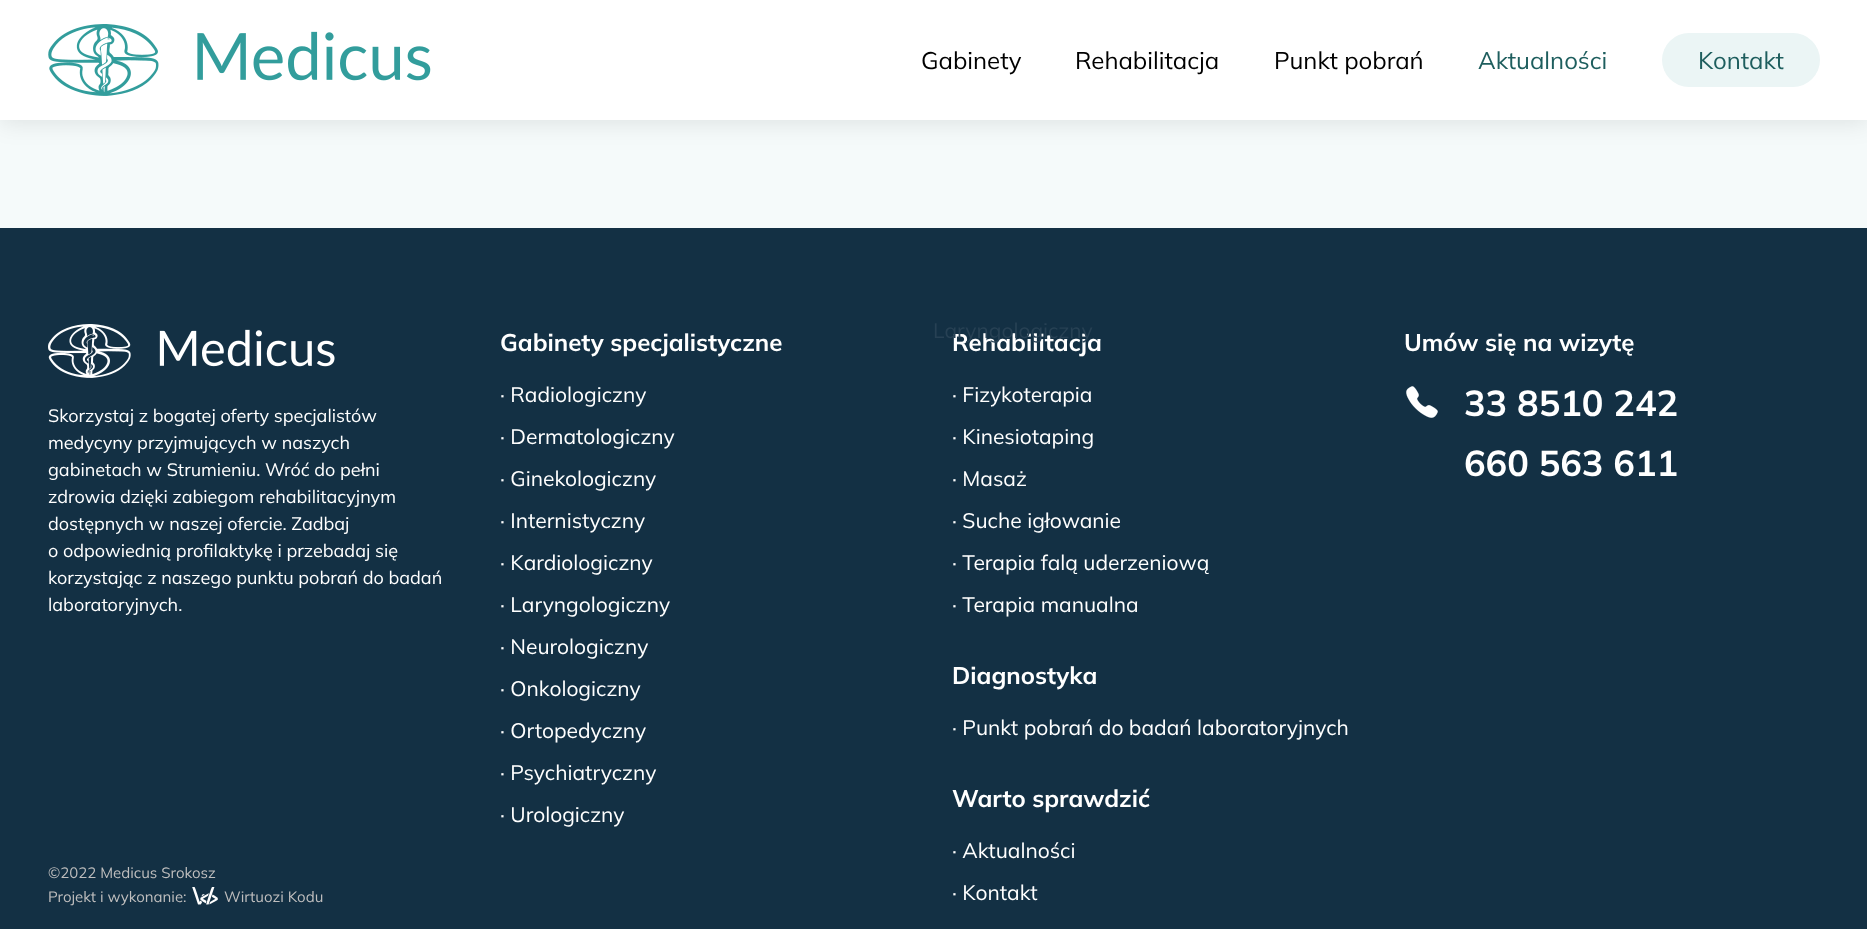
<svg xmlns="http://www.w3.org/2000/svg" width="1867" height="929">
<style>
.a{font:24px Mulish;fill:#000}
.b{font:24px Mulish;fill:#1e5e5e}
.c{font:18px Mulish;fill:#fff}
.d{font:15px Mulish;fill:#bfbebe}
.e{font:bold 24px Mulish;fill:#fff}
.f{font:21px Mulish;fill:#fff}
.g{font:21px Mulish;fill:#274154}
.h{font:bold 36px Mulish;fill:#fff}
</style>
<rect width="100%" height="100%" fill="#f5fafa"/>
<path fill="#0000001a" filter="blur(12px)" d="M0 2h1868v120H0z"/>
<path fill="#fff" d="M0 0h1867v120H0z"/>
<image href="1.png" x="48" y="24" width="383" height="72"/>
<rect fill="#ebf5f5" x="1662" y="33" width="158" height="54" rx="27"/>
<path fill="#133044" d="M0 228h1867v701H0z"/>
<image href="2.png" x="48" y="324" width="287" height="54"/>
<image href="3.png" x="192" y="887" width="26" height="18"/>
<image href="4.png" x="1406" y="386" width="32" height="32"/>
<text class="a" x="921" y="69">Gabinety</text>
<text class="a" x="1075" y="69">Rehabilitacja</text>
<text class="a" x="1274" y="69">Punkt pobrań</text>
<text class="b" x="1478" y="69">Aktualności</text>
<text class="b" x="1698" y="69">Kontakt</text>
<text class="c" x="48" y="422">Skorzystaj z bogatej oferty specjalistów</text>
<text class="c" x="48" y="449">medycyny przyjmujących w naszych</text>
<text class="c" x="48" y="476">gabinetach w Strumieniu. Wróć do pełni</text>
<text class="c" x="48" y="503">zdrowia dzięki zabiegom rehabilitacyjnym</text>
<text class="c" x="48" y="530">dostępnych w naszej ofercie. Zadbaj</text>
<text class="c" x="48" y="557">o odpowiednią profilaktykę i przebadaj się</text>
<text class="c" x="48" y="584">korzystając z naszego punktu pobrań do badań</text>
<text class="c" x="48" y="611">laboratoryjnych.</text>
<text class="d" x="48" y="878">©2022 Medicus Srokosz</text>
<text class="d" x="48" y="902">Projekt i wykonanie:</text>
<text class="d" x="224" y="902">Wirtuozi Kodu</text>
<text class="e" x="500" y="351">Gabinety specjalistyczne</text>
<text class="f" x="500" y="402">· Radiologiczny</text>
<text class="f" x="500" y="444">· Dermatologiczny</text>
<text class="f" x="500" y="486">· Ginekologiczny</text>
<text class="f" x="500" y="528">· Internistyczny</text>
<text class="f" x="500" y="570">· Kardiologiczny</text>
<text class="f" x="500" y="612">· Laryngologiczny</text>
<text class="f" x="500" y="654">· Neurologiczny</text>
<text class="f" x="500" y="696">· Onkologiczny</text>
<text class="f" x="500" y="738">· Ortopedyczny</text>
<text class="f" x="500" y="780">· Psychiatryczny</text>
<text class="f" x="500" y="822">· Urologiczny</text>
<text class="e" x="952" y="351">Rehabilitacja</text>
<text class="g" x="933" y="338">Laryngologiczny</text>
<text class="f" x="952" y="402">· Fizykoterapia</text>
<text class="f" x="952" y="444">· Kinesiotaping</text>
<text class="f" x="952" y="486">· Masaż</text>
<text class="f" x="952" y="528">· Suche igłowanie</text>
<text class="f" x="952" y="570">· Terapia falą uderzeniową</text>
<text class="f" x="952" y="612">· Terapia manualna</text>
<text class="e" x="952" y="684">Diagnostyka</text>
<text class="f" x="952" y="735">· Punkt pobrań do badań laboratoryjnych</text>
<text class="e" x="952" y="807">Warto sprawdzić</text>
<text class="f" x="952" y="858">· Aktualności</text>
<text class="f" x="952" y="900">· Kontakt</text>
<text class="e" x="1404" y="351">Umów się na wizytę</text>
<text class="h" x="1464" y="416">33 8510 242</text>
<text class="h" x="1464" y="476">660 563 611</text>
</svg>
